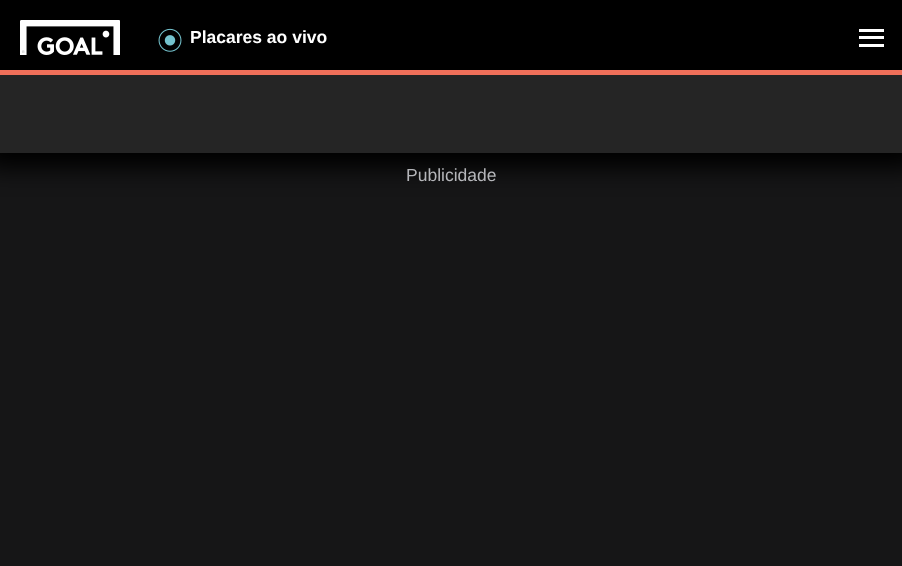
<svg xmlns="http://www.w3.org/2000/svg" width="902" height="566">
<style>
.a{font:bold 17.5px Liberation Sans;fill:#fff}
.b{font:17.5px Liberation Sans;fill:#b5b6ba}
</style>
<rect width="100%" height="100%" fill="#161617"/>
<path fill="#000" filter="blur(12px)" d="M-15 60h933v108H-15z"/>
<path fill="#000" d="M0 0h902v70H0z"/>
<path fill="#f0705a" d="M0 70h902v5H0z"/>
<image href="1.png" x="20" y="20" width="100" height="35"/>
<image href="2.png" x="158" y="28" width="24" height="24"/>
<path fill="#fff" d="M859 29h25v3H859z"/>
<path fill="#fff" d="M859 36h25v3H859z"/>
<path fill="#fff" d="M859 44h25v3H859z"/>
<path fill="#252525" d="M0 75h902v78H0z"/>
<text class="a" x="190" y="43">Placares ao vivo</text>
<text class="b" x="406" y="181">Publicidade</text>
</svg>
